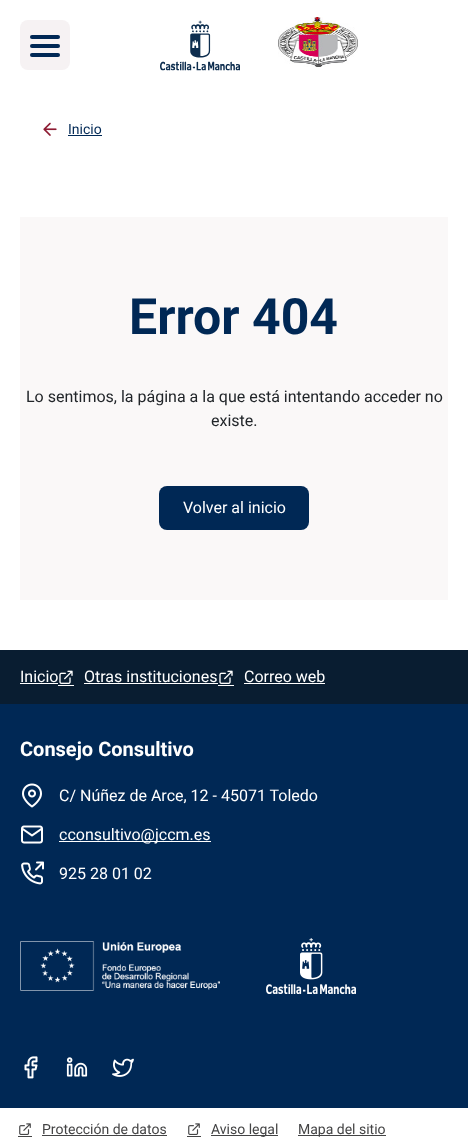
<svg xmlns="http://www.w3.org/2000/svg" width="468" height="1137">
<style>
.a{font:14px Roboto;fill:#002855}
.b{font:bold 50px Roboto;fill:#002855}
.c{font:16px Roboto;fill:#212529}
.d{font:16px Roboto;fill:#fff}
.e{font:bold 20px Roboto;fill:#fff}
.f{font:14px Roboto;fill:#444445}
</style>
<rect width="100%" height="100%" fill="#fff"/>
<rect fill="#f6f2f3" x="20" y="20" width="50" height="50" rx="8"/>
<rect fill="#002855" x="30" y="35" width="30" height="4" rx="2"/>
<rect fill="#002855" x="30" y="44" width="30" height="4" rx="2"/>
<rect fill="#002855" x="30" y="53" width="30" height="4" rx="2"/>
<image href="1.png" x="160" y="20" width="80" height="51"/>
<image href="2.png" x="278" y="17" width="80" height="50"/>
<image href="3.png" x="43" y="122" width="14" height="14"/>
<path fill="#002855" d="M68 135h34v1H68z"/>
<path fill="#faf8f8" d="M20 217h428v383H20z"/>
<rect fill="#002855" x="159" y="486" width="150" height="44" rx="8"/>
<path fill="#091d31" d="M0 650h468v54H0z"/>
<path fill="#fff" d="M20 683h38v1H20z"/>
<path fill="#fff" d="M58 685h16v1H58z"/>
<image href="4.png" x="59" y="670" width="14" height="14"/>
<path fill="#fff" d="M84 683h134v1H84z"/>
<path fill="#fff" d="M218 685h16v1H218z"/>
<image href="4.png" x="219" y="670" width="14" height="14"/>
<path fill="#fff" d="M244 683h81v1H244z"/>
<path fill="#002855" d="M0 704h468v404H0z"/>
<image href="5.png" x="22" y="783" width="20" height="25"/>
<image href="6.png" x="21" y="825" width="22" height="19"/>
<path fill="#fff" d="M59 841h152v1H59z"/>
<image href="7.png" x="21" y="861" width="23" height="24"/>
<image href="8.png" x="20" y="941" width="200" height="50"/>
<image href="9.png" x="266" y="938" width="90" height="56"/>
<image href="10.png" x="24" y="1056" width="14" height="23"/>
<image href="11.png" x="66" y="1057" width="22" height="20"/>
<image href="12.png" x="112" y="1058" width="22" height="19"/>
<path fill="#444445" d="M18 1136h14v1H18z"/>
<image href="13.png" x="19" y="1123" width="12" height="12"/>
<path fill="#444445" d="M42 1135h125v1H42z"/>
<path fill="#444445" d="M187 1136h14v1H187z"/>
<image href="13.png" x="188" y="1123" width="12" height="12"/>
<path fill="#444445" d="M211 1135h67v1H211z"/>
<path fill="#444445" d="M298 1135h88v1H298z"/>
<text class="a" x="68" y="134">Inicio</text>
<text class="b" x="129" y="334">Error 404</text>
<text class="c" x="26" y="402">Lo sentimos, la página a la que está intentando acceder no</text>
<text class="c" x="211" y="426">existe.</text>
<text class="d" x="183" y="513">Volver al inicio</text>
<text class="d" x="20" y="682">Inicio</text>
<text class="d" x="84" y="682">Otras instituciones</text>
<text class="d" x="244" y="682">Correo web</text>
<text class="e" x="20" y="756">Consejo Consultivo</text>
<text class="d" x="59" y="801">C/ Núñez de Arce, 12 - 45071 Toledo</text>
<text class="d" x="59" y="840">cconsultivo@jccm.es</text>
<text class="d" x="59" y="879">925 28 01 02</text>
<text class="f" x="42" y="1134">Protección de datos</text>
<text class="f" x="211" y="1134">Aviso legal</text>
<text class="f" x="298" y="1134">Mapa del sitio</text>
</svg>
